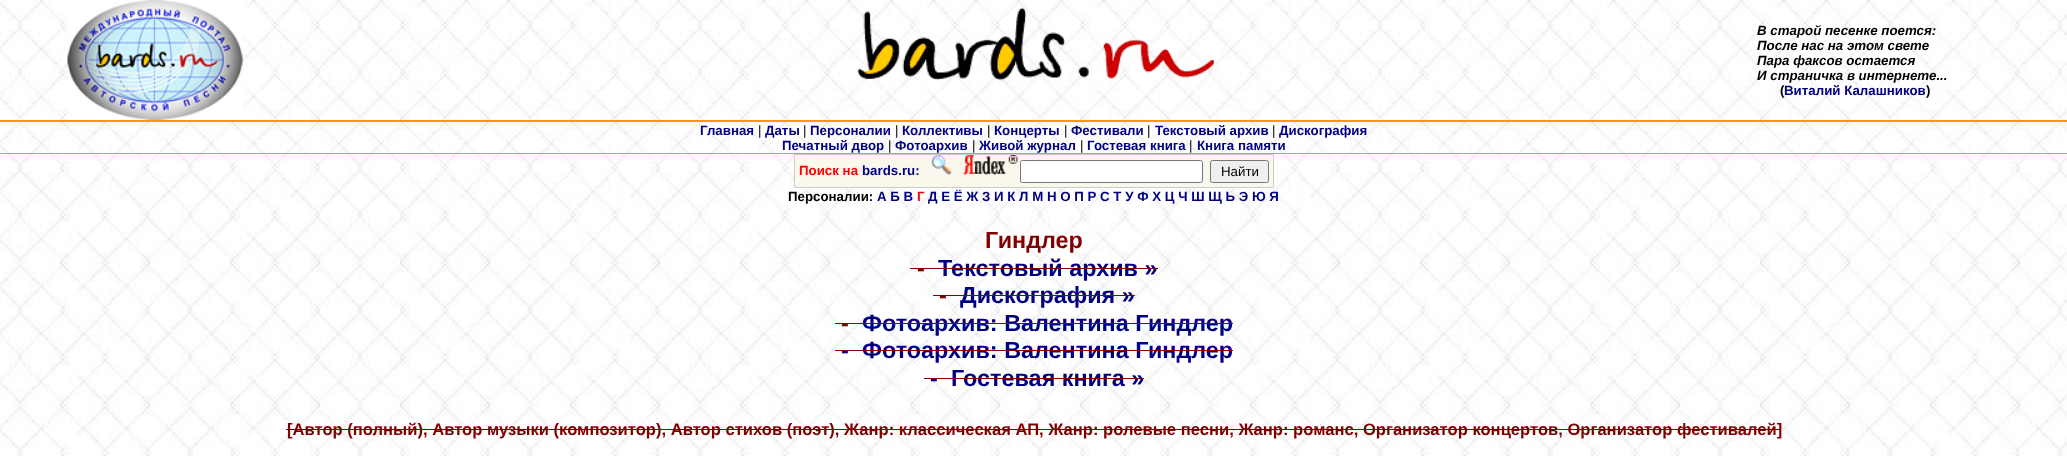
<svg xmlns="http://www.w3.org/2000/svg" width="2067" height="456">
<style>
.a{font:italic bold 13.3px Liberation Sans;fill:#000}
.b{font:bold 13.3px Liberation Sans;fill:#000}
.c{font:bold 13.3px Liberation Sans;fill:#000080}
.d{font:13.3px Liberation Sans;fill:#000}
.e{font:bold 13.3px Liberation Sans;fill:#f00}
.f{font:bold 23.4px Liberation Sans;fill:#800000}
.g{font:bold 23.4px Liberation Sans;fill:#000080}
.h{font:bold 16.6px Liberation Sans;fill:#800000}
</style>
<rect width="100%" height="100%" fill="#fff"/>
<image href="1.png" x="0" y="0" width="2067" height="456"/>
<image href="2.png" x="67" y="0" width="176" height="120"/>
<image href="3.png" x="857" y="7" width="358" height="74"/>
<path fill="#f90" d="M0 120h2067v2H0z"/>
<path fill="#f90" d="M0 153h2067v1H0z"/>
<path fill="#faf7ed" stroke="#ccc" d="M794.5 154.5h479v33H794.5z"/>
<image href="4.png" x="931" y="155" width="21" height="20"/>
<image href="5.png" x="963" y="155" width="55" height="20"/>
<rect fill="#fff" stroke="#767676" x="1020.5" y="160.5" width="182" height="22" rx="2"/>
<rect fill="#efefef" stroke="#767676" x="1210.5" y="160.5" width="58" height="22" rx="2"/>
<path fill="#800000" d="M910 268h28v1H910z"/>
<path fill="#800000" d="M933 295h27v1H933z"/>
<path fill="#800000" d="M835 323h28v1H835z"/>
<path fill="#800000" d="M286 429h1495v1H286z"/>
<text class="a" x="1757" y="35">В старой песенке поется:</text>
<text class="a" x="1757" y="50">После нас на этом свете</text>
<text class="a" x="1757" y="65">Пара факсов остается</text>
<text class="a" x="1757" y="80">И страничка в интернете...</text>
<text class="b" x="1780" y="95">(</text>
<text class="c" x="1784" y="95">Виталий Калашников</text>
<text class="b" x="1926" y="95">)</text>
<text class="c" x="700" y="135">Главная</text>
<text class="d" x="758" y="135">|</text>
<text class="c" x="765" y="135">Даты</text>
<text class="d" x="803" y="135">|</text>
<text class="c" x="810" y="135">Персоналии</text>
<text class="d" x="895" y="135">|</text>
<text class="c" x="902" y="135">Коллективы</text>
<text class="d" x="987" y="135">|</text>
<text class="c" x="994" y="135">Концерты</text>
<text class="d" x="1064" y="135">|</text>
<text class="c" x="1071" y="135">Фестивали</text>
<text class="d" x="1147" y="135">|</text>
<text class="c" x="1155" y="135">Текстовый архив</text>
<text class="d" x="1272" y="135">|</text>
<text class="c" x="1279" y="135">Дискография</text>
<text class="c" x="782" y="150">Печатный двор</text>
<text class="d" x="888" y="150">|</text>
<text class="c" x="895" y="150">Фотоархив</text>
<text class="d" x="972" y="150">|</text>
<text class="c" x="979" y="150">Живой журнал</text>
<text class="d" x="1080" y="150">|</text>
<text class="c" x="1087" y="150">Гостевая книга</text>
<text class="d" x="1189" y="150">|</text>
<text class="c" x="1197" y="150">Книга памяти</text>
<text class="e" x="799" y="175">Поиск на</text>
<text class="c" x="862" y="175">bards.ru:</text>
<text class="d" x="1221" y="176">Найти</text>
<text class="b" x="788" y="201">Персоналии:</text>
<text class="c" x="877" y="201">А Б В</text>
<text class="e" x="917" y="201">Г</text>
<text class="c" x="928" y="201">Д Е Ё Ж З И К Л М Н О П Р С Т У Ф Х Ц Ч Ш Щ Ь Э Ю Я</text>
<text class="f" x="985" y="248">Гиндлер</text>
<text class="f" x="917" y="276">-</text>
<text class="g" x="938" y="276">Текстовый архив »</text>
<path fill="#800000" d="M938 268h220v1H938z"/>
<text class="f" x="939" y="303">-</text>
<text class="g" x="960" y="303">Дискография »</text>
<path fill="#800000" d="M960 295h175v1H960z"/>
<text class="f" x="841" y="331">-</text>
<text class="g" x="862" y="331">Фотоархив: Валентина Гиндлер</text>
<path fill="#800000" d="M863 323h370v1H863z"/>
<text class="g" x="841" y="358">-</text>
<path fill="#800000" d="M835 350h28v1H835z"/>
<text class="g" x="862" y="358">Фотоархив: Валентина Гиндлер</text>
<path fill="#800000" d="M863 350h370v1H863z"/>
<text class="g" x="930" y="386">-</text>
<text class="g" x="951" y="386">Гостевая книга »</text>
<path fill="#800000" d="M924 378h27v1H924z"/>
<path fill="#800000" d="M951 378h193v1H951z"/>
<text class="h" x="287" y="435">[Автор (полный), Автор музыки (композитор), Автор стихов (поэт), Жанр: классическая АП, Жанр: ролевые песни, Жанр: романс, Организатор концертов, Организатор фестивалей]</text>
</svg>
